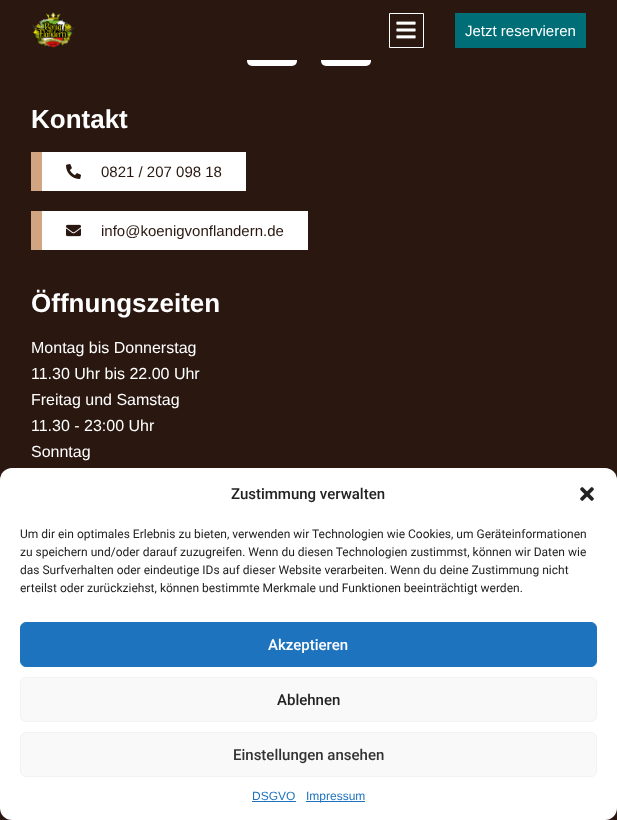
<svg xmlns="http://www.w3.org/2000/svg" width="617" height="820">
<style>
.a{font:15px Liberation Sans;fill:#fff}
.b{font:bold 26px Liberation Sans;fill:#fff}
.c{font:15px Liberation Sans;fill:#291710}
.d{font:16px Liberation Sans;fill:#fff}
.e{font:500 15px Roboto;fill:#222}
.f{font:12px Roboto;fill:#222}
.g{font:500 15px Roboto;fill:#fff}
.h{font:500 15px Roboto;fill:#333}
.i{font:12px Liberation Sans;fill:#1e73be}
</style>
<rect width="100%" height="100%" fill="#291710"/>
<rect fill="#fff" x="247" y="16" width="50" height="50" rx="5"/>
<rect fill="#fff" x="321" y="16" width="50" height="50" rx="5"/>
<path fill="#291710" d="M247 16h124v44H247z"/>
<image href="1.png" x="32" y="12" width="43" height="36"/>
<path fill="none" stroke="#fff" d="M389.5 13.5h34v34H389.5z"/>
<image href="2.png" x="396" y="21" width="20" height="18"/>
<path fill="#006e76" d="M455 13h131v35H455z"/>
<path fill="#fff" d="M42 152h204v39H42z"/>
<path fill="#d1a582" d="M31 152h11v39H31z"/>
<image href="3.png" x="66" y="164" width="15" height="15"/>
<path fill="#fff" d="M42 211h266v39H42z"/>
<path fill="#d1a582" d="M31 211h11v39H31z"/>
<image href="4.png" x="66" y="224" width="15" height="13"/>
<rect fill="#fff" y="468" width="617" height="352" rx="12"/>
<image href="5.png" x="580" y="487" width="14" height="14"/>
<rect fill="#1e73be" stroke="#1e73be" x="20.5" y="622.5" width="576" height="44" rx="5.5"/>
<rect fill="#f9f9f9" stroke="#f2f2f2" x="20.5" y="677.5" width="576" height="44" rx="5.5"/>
<rect fill="#f9f9f9" stroke="#f2f2f2" x="20.5" y="732.5" width="576" height="44" rx="5.5"/>
<path fill="#1e73be" d="M252 801h44v1H252z"/>
<path fill="#1e73be" d="M306 801h59v1H306z"/>
<text class="a" x="465" y="36">Jetzt reservieren</text>
<text class="b" x="31" y="128">Kontakt</text>
<text class="c" x="101" y="177">0821 / 207 098 18</text>
<text class="c" x="101" y="236">info@koenigvonflandern.de</text>
<text class="b" x="31" y="312">Öffnungszeiten</text>
<text class="d" x="31" y="353">Montag bis Donnerstag</text>
<text class="d" x="31" y="379">11.30 Uhr bis 22.00 Uhr</text>
<text class="d" x="31" y="405">Freitag und Samstag</text>
<text class="d" x="31" y="431">11.30 - 23:00 Uhr</text>
<text class="d" x="31" y="457">Sonntag</text>
<text class="e" x="231" y="499">Zustimmung verwalten</text>
<text class="f" x="20" y="538">Um dir ein optimales Erlebnis zu bieten, verwenden wir Technologien wie Cookies, um Geräteinformationen</text>
<text class="f" x="20" y="556">zu speichern und/oder darauf zuzugreifen. Wenn du diesen Technologien zustimmst, können wir Daten wie</text>
<text class="f" x="20" y="574">das Surfverhalten oder eindeutige IDs auf dieser Website verarbeiten. Wenn du deine Zustimmung nicht</text>
<text class="f" x="20" y="592">erteilst oder zurückziehst, können bestimmte Merkmale und Funktionen beeinträchtigt werden.</text>
<text class="g" x="268" y="650">Akzeptieren</text>
<text class="e" x="277" y="705">Ablehnen</text>
<text class="h" x="233" y="760">Einstellungen ansehen</text>
<text class="i" x="252" y="800">DSGVO</text>
<text class="i" x="306" y="800">Impressum</text>
</svg>
